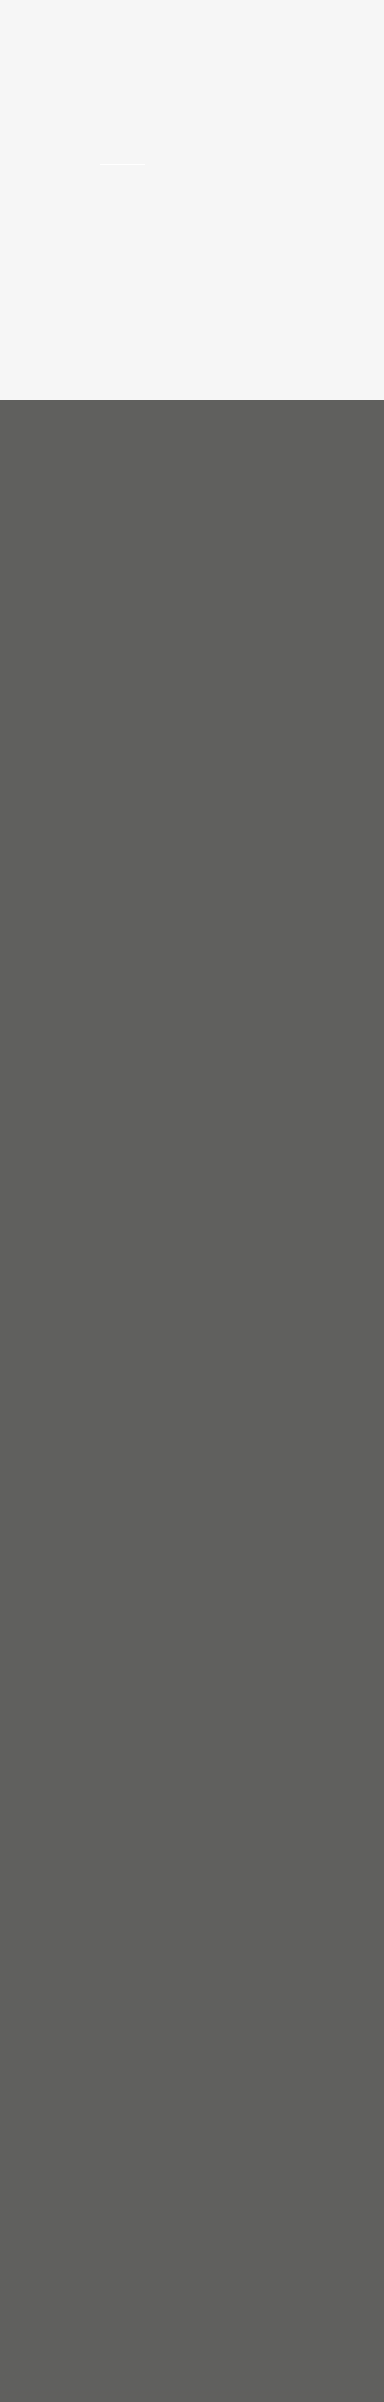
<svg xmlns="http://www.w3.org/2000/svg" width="384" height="2402">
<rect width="100%" height="100%" fill="#f6f6f6"/>
<path fill="#fff" d="M100 164h45v1H100z"/>
<path fill="#60605e" d="M0 400h384v2002H0z"/>
</svg>
